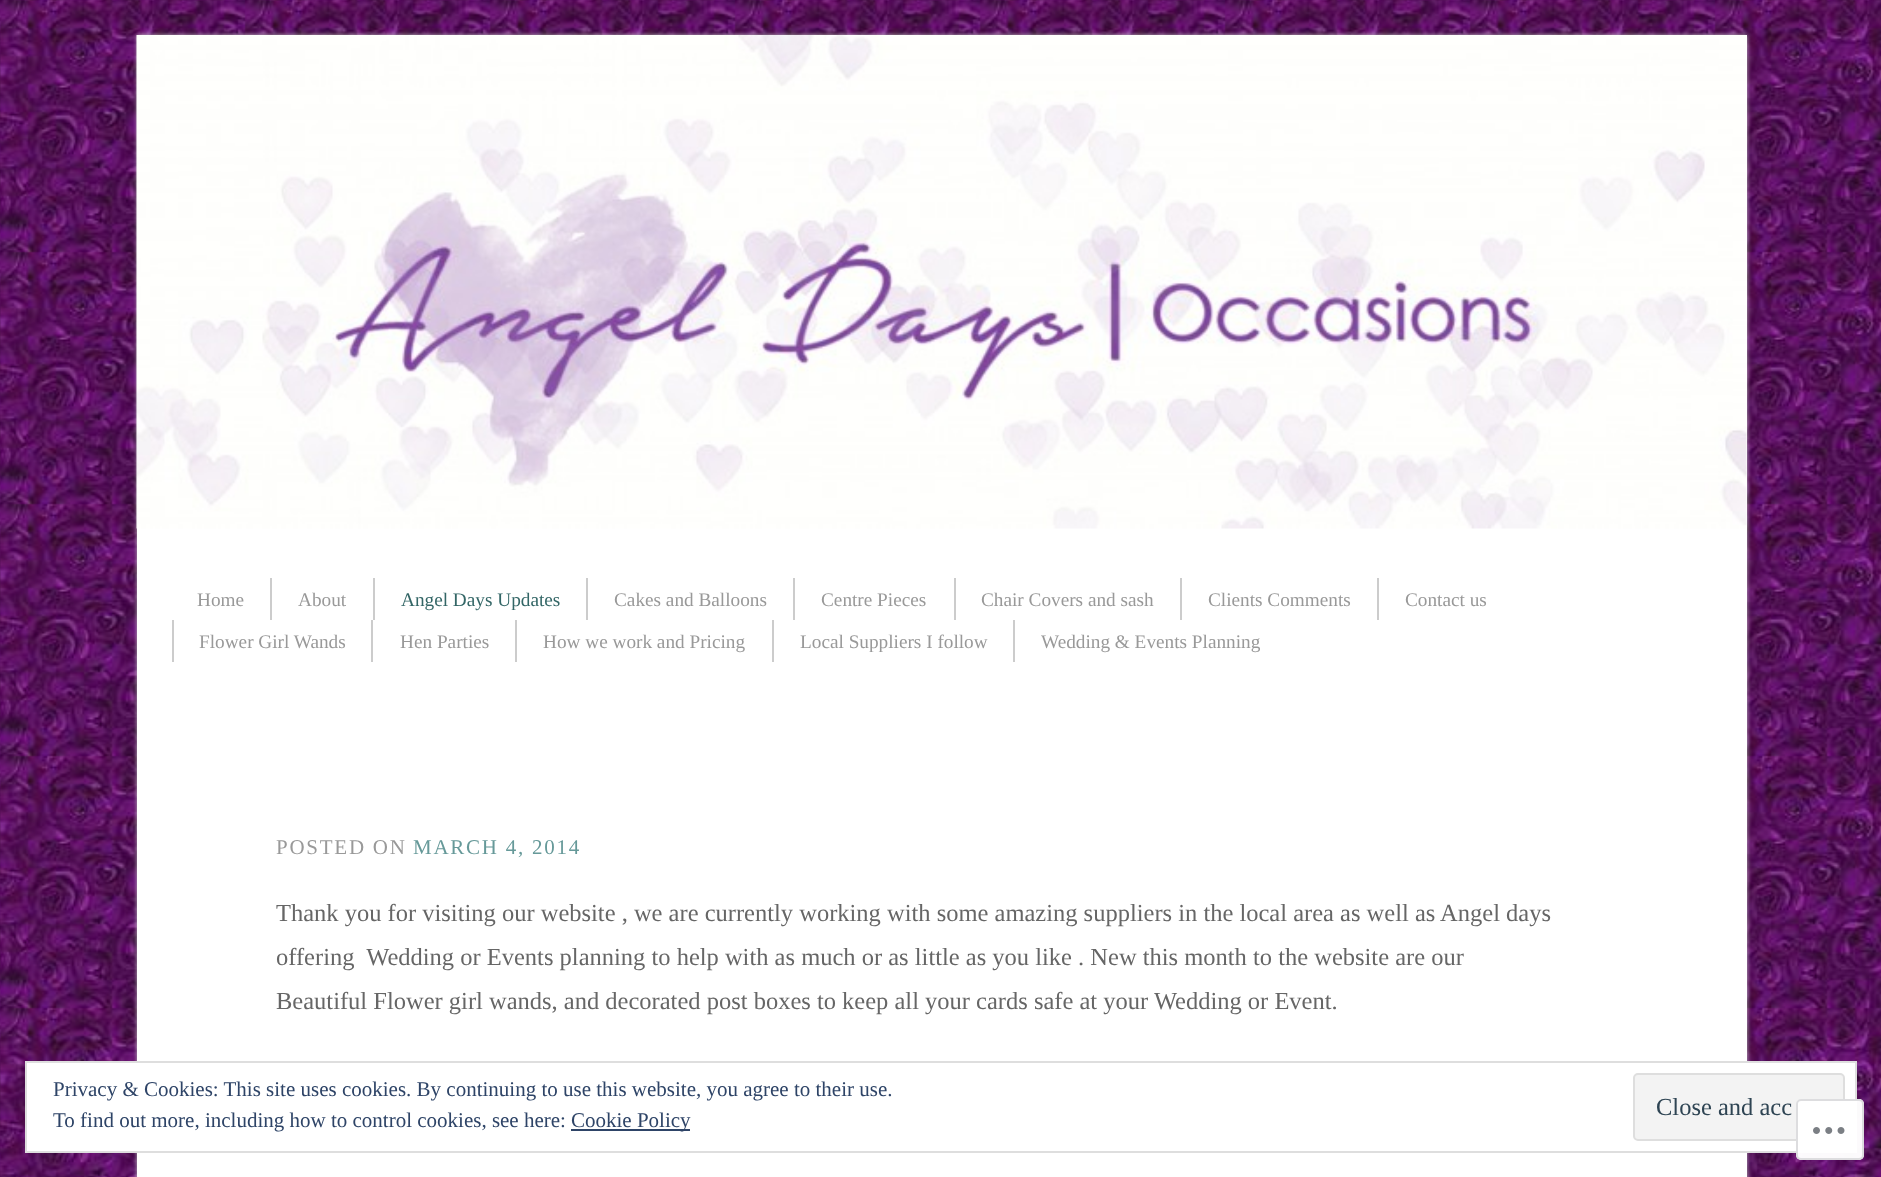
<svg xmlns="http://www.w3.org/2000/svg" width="1881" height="1177">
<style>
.a{font:19.25px Liberation Serif;fill:#999}
.b{font:19.25px Liberation Serif;fill:#366}
.c{font:21px Liberation Serif;letter-spacing:1.75px;fill:#999}
.d{font:21px Liberation Serif;letter-spacing:1.75px;fill:#699}
.e{font:24.5px Liberation Serif;fill:#666}
.f{font:21px Liberation Serif;fill:#2e4467}
.g{font:24.5px Liberation Serif;fill:#2e4453}
</style>
<rect width="100%" height="100%" fill="#fff"/>
<image href="1.png" x="0" y="0" width="1881" height="1177"/>
<path fill="#bbb" filter="blur(2px)" d="M137 35h1610v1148H137z"/>
<path fill="#fff" d="M137 35h1610v1142H137z"/>
<image href="2.png" x="136" y="35" width="1611" height="494"/>
<path fill="#ccc" d="M270 578h2v42H270z"/>
<path fill="#ccc" d="M373 578h2v42H373z"/>
<path fill="#ccc" d="M586 578h2v42H586z"/>
<path fill="#ccc" d="M793 578h2v42H793z"/>
<path fill="#ccc" d="M954 578h2v42H954z"/>
<path fill="#ccc" d="M1180 578h2v42H1180z"/>
<path fill="#ccc" d="M1377 578h2v42H1377z"/>
<path fill="#ccc" d="M172 620h2v42H172z"/>
<path fill="#ccc" d="M371 620h2v42H371z"/>
<path fill="#ccc" d="M515 620h2v42H515z"/>
<path fill="#ccc" d="M772 620h2v42H772z"/>
<path fill="#ccc" d="M1013 620h2v42H1013z"/>
<path fill="#fff" stroke="#dedede" stroke-width="2" d="M26 1062h1830v90H26z"/>
<rect fill="#f3f3f3" stroke="#dedede" stroke-width="2" x="1634" y="1074" width="210" height="66" rx="4"/>
<path fill="#2e4467" d="M571 1129h119v2H571z"/>
<rect fill="#fffffffa" x="1796" y="1099" width="68" height="61" rx="5"/>
<rect fill="none" stroke="#dcdcdefa" stroke-width="2" x="1797" y="1100" width="66" height="59" rx="4"/>
<image href="3.png" x="1813" y="1127" width="32" height="7"/>
<text class="a" x="197" y="606">Home</text>
<text class="a" x="298" y="606">About</text>
<text class="b" x="401" y="606">Angel Days Updates</text>
<text class="a" x="614" y="606">Cakes and Balloons</text>
<text class="a" x="821" y="606">Centre Pieces</text>
<text class="a" x="981" y="606">Chair Covers and sash</text>
<text class="a" x="1208" y="606">Clients Comments</text>
<text class="a" x="1405" y="606">Contact us</text>
<text class="a" x="199" y="648">Flower Girl Wands</text>
<text class="a" x="400" y="648">Hen Parties</text>
<text class="a" x="543" y="648">How we work and Pricing</text>
<text class="a" x="800" y="648">Local Suppliers I follow</text>
<text class="a" x="1041" y="648">Wedding &amp; Events Planning</text>
<text class="c" x="276" y="854">POSTED ON</text>
<text class="d" x="413" y="854">MARCH 4, 2014</text>
<text class="e" x="276" y="921">Thank you for visiting our website , we are currently working with some amazing suppliers in the local area as well as Angel days</text>
<text class="e" xml:space="preserve" x="276" y="965">offering  Wedding or Events planning to help with as much or as little as you like . New this month to the website are our</text>
<text class="e" x="276" y="1009">Beautiful Flower girl wands, and decorated post boxes to keep all your cards safe at your Wedding or Event.</text>
<text class="f" x="53" y="1096">Privacy &amp; Cookies: This site uses cookies. By continuing to use this website, you agree to their use.</text>
<text class="g" x="1656" y="1115">Close and acc</text>
<text class="f" x="53" y="1127">To find out more, including how to control cookies, see here:</text>
<text class="f" x="571" y="1127">Cookie Policy</text>
</svg>
